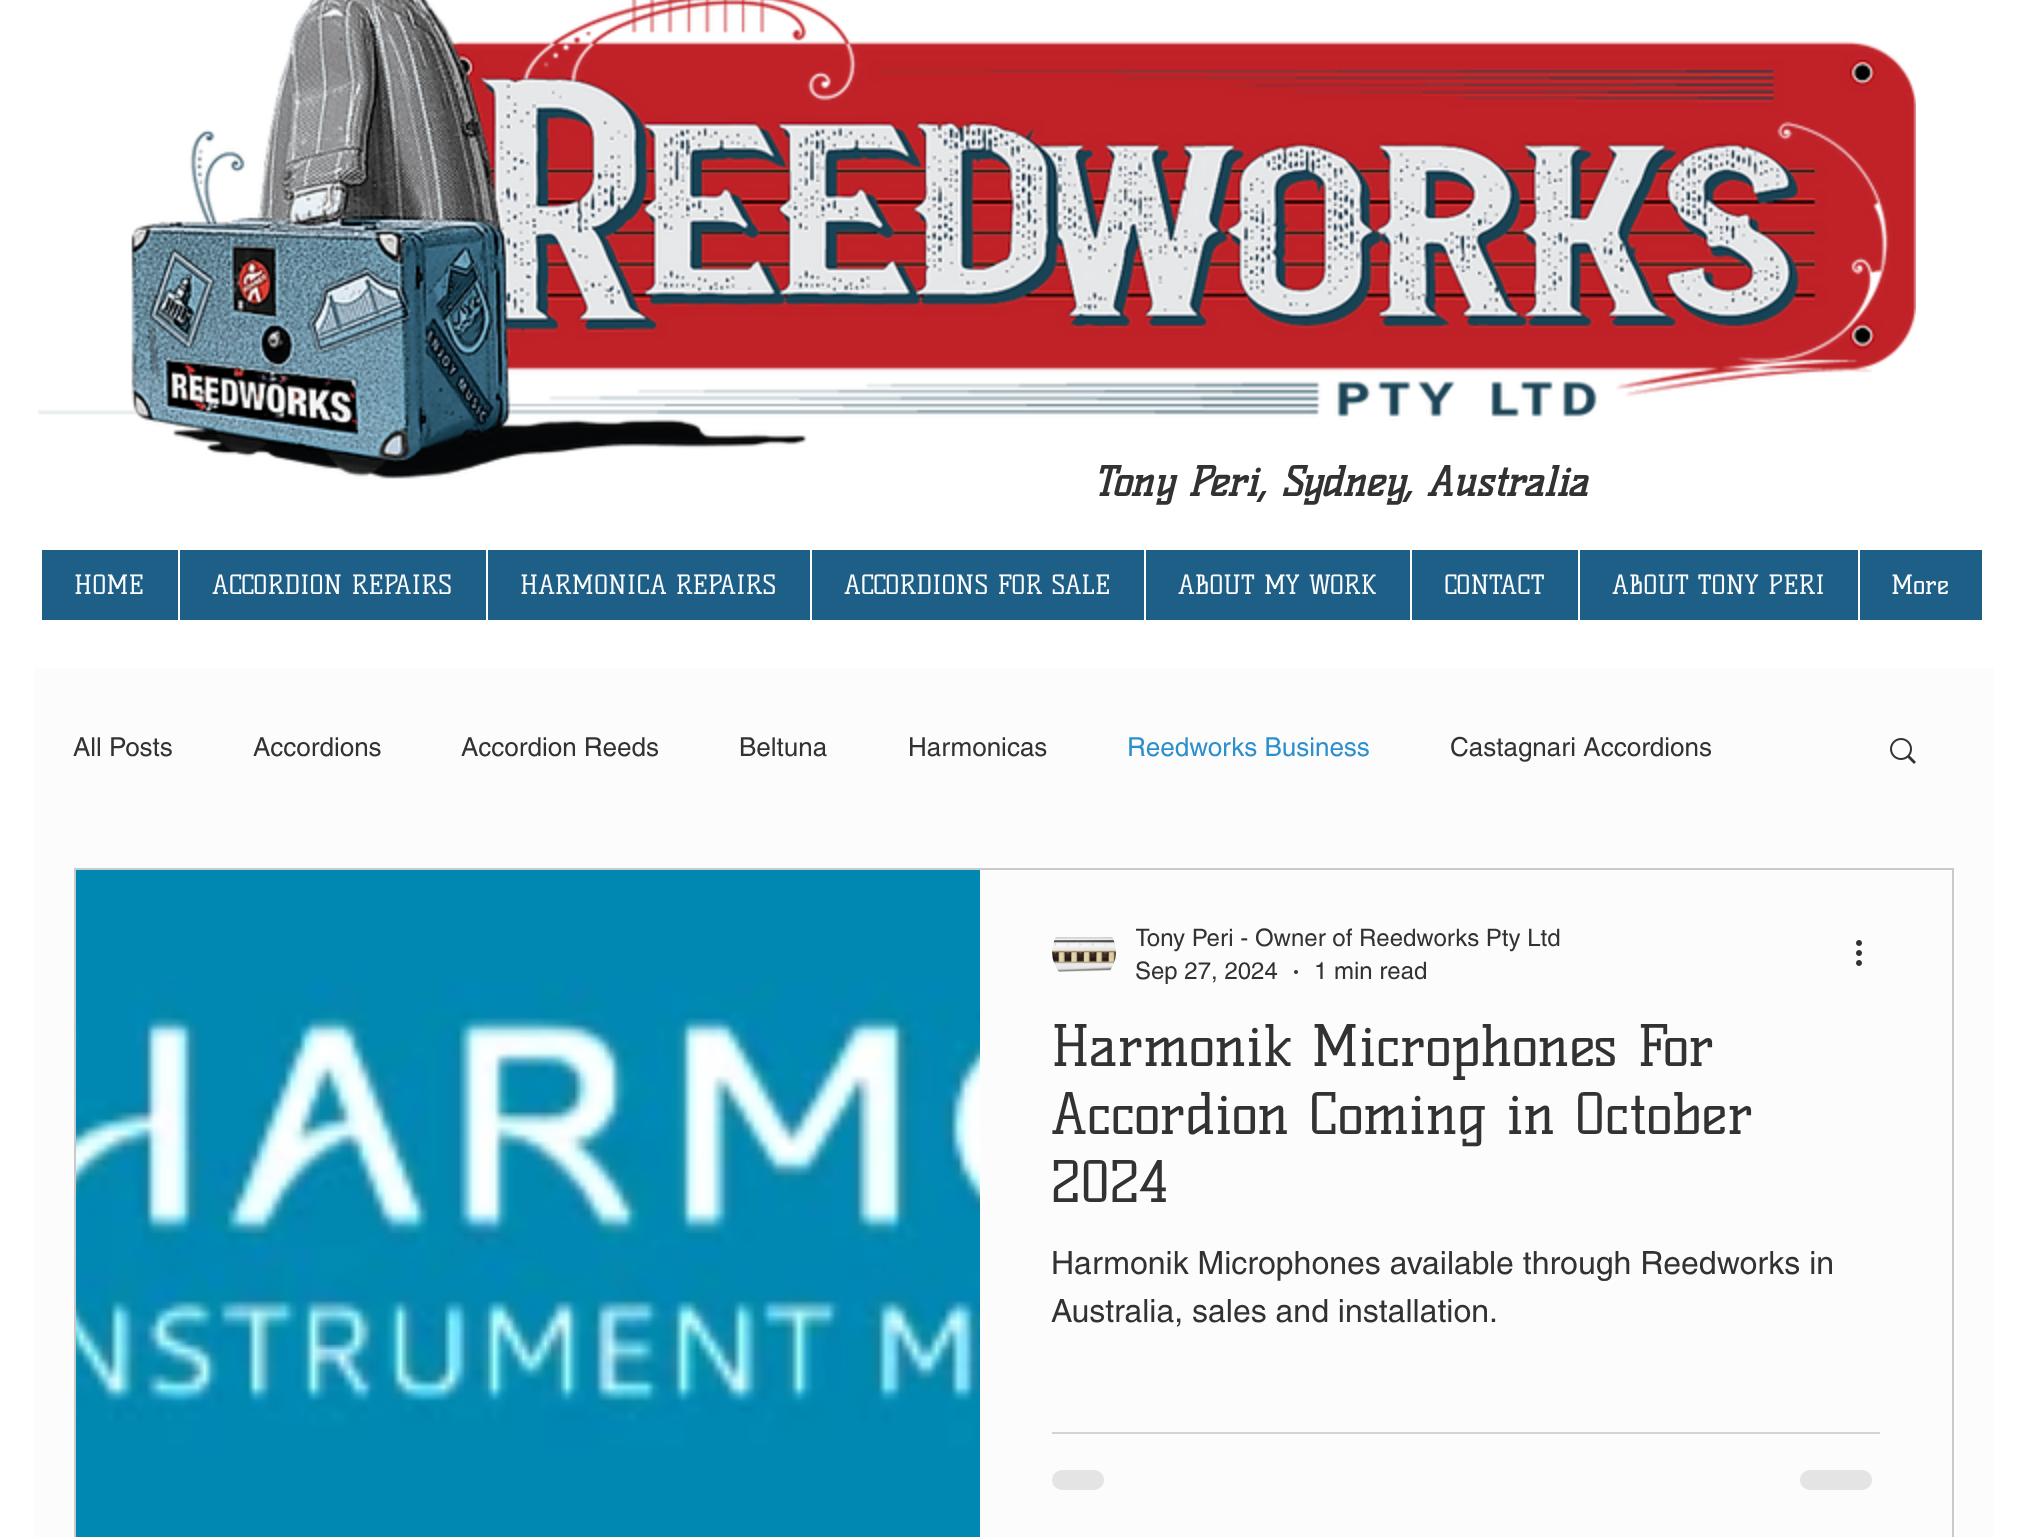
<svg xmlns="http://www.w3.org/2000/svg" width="2026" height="1537">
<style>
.a{font:italic bold 40px Kelly Slab;fill:#323232}
.b{font:26px Kelly Slab;fill:#fcfcfc}
.c{font:26px helvetica;fill:#323232}
.d{font:26px helvetica;fill:#2d8fcc}
.e{font:24px helvetica;fill:#323232}
.f{font:56px Kelly Slab;fill:#323232}
.g{font:32px helvetica;fill:#323232}
</style>
<defs>
<clipPath id="clip1"><path d="M1136 924h424v28H1136z"/></clipPath>
</defs>
<rect width="100%" height="100%" fill="#fff"/>
<image href="1.png" x="38" y="0" width="1878" height="479"/>
<path fill="#1e5f88" d="M42 550h1940v70H42z"/>
<path fill="#fcfcfc" d="M178 550h2v70H178z"/>
<path fill="#fcfcfc" d="M486 550h2v70H486z"/>
<path fill="#fcfcfc" d="M810 550h2v70H810z"/>
<path fill="#fcfcfc" d="M1144 550h2v70H1144z"/>
<path fill="#fcfcfc" d="M1410 550h2v70H1410z"/>
<path fill="#fcfcfc" d="M1578 550h2v70H1578z"/>
<path fill="#fcfcfc" d="M1858 550h2v70H1858z"/>
<path fill="#fcfcfc" d="M34 668h1960v869H34z"/>
<image href="2.png" x="1890" y="738" width="26" height="26"/>
<path fill="none" stroke="#cacaca" stroke-width="2" d="M75 869h1878v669H75z"/>
<image href="3.png" x="76" y="870" width="904" height="667"/>
<image href="4.png" x="1052" y="937" width="64" height="35"/>
<circle fill="#323232" cx="1296" cy="972" r="2"/>
<image href="5.png" x="1856" y="940" width="6" height="26"/>
<path fill="#d4d4d4" d="M1052 1432h828v2H1052z"/>
<rect fill="#e4e4e4" x="1052" y="1470" width="52" height="20" rx="10"/>
<rect fill="#e4e4e4" x="1800" y="1470" width="72" height="20" rx="10"/>
<text class="a" x="1093" y="496">Tony Peri, Sydney, Australia</text>
<text class="b" x="74" y="594">HOME</text>
<text class="b" x="212" y="594">ACCORDION REPAIRS</text>
<text class="b" x="520" y="594">HARMONICA REPAIRS</text>
<text class="b" x="844" y="594">ACCORDIONS FOR SALE</text>
<text class="b" x="1178" y="594">ABOUT MY WORK</text>
<text class="b" x="1444" y="594">CONTACT</text>
<text class="b" x="1612" y="594">ABOUT TONY PERI</text>
<text class="b" x="1891" y="594">More</text>
<text class="c" x="73" y="756">All Posts</text>
<text class="c" x="253" y="756">Accordions</text>
<text class="c" x="461" y="756">Accordion Reeds</text>
<text class="c" x="739" y="756">Beltuna</text>
<text class="c" x="908" y="756">Harmonicas</text>
<text class="d" x="1127" y="756">Reedworks Business</text>
<text class="c" x="1450" y="756">Castagnari Accordions</text>
<g clip-path="url(#clip1)">
<text class="e" x="1135" y="946">Tony Peri - Owner of Reedworks Pty Ltd</text>
</g>
<text class="e" x="1135" y="979">Sep 27, 2024</text>
<text class="e" x="1314" y="979">1 min read</text>
<text class="f" x="1051" y="1066">Harmonik Microphones For</text>
<text class="f" x="1051" y="1134">Accordion Coming in October</text>
<text class="f" x="1051" y="1202">2024</text>
<text class="g" x="1051" y="1274">Harmonik Microphones available through Reedworks in</text>
<text class="g" x="1051" y="1322">Australia, sales and installation.</text>
</svg>
